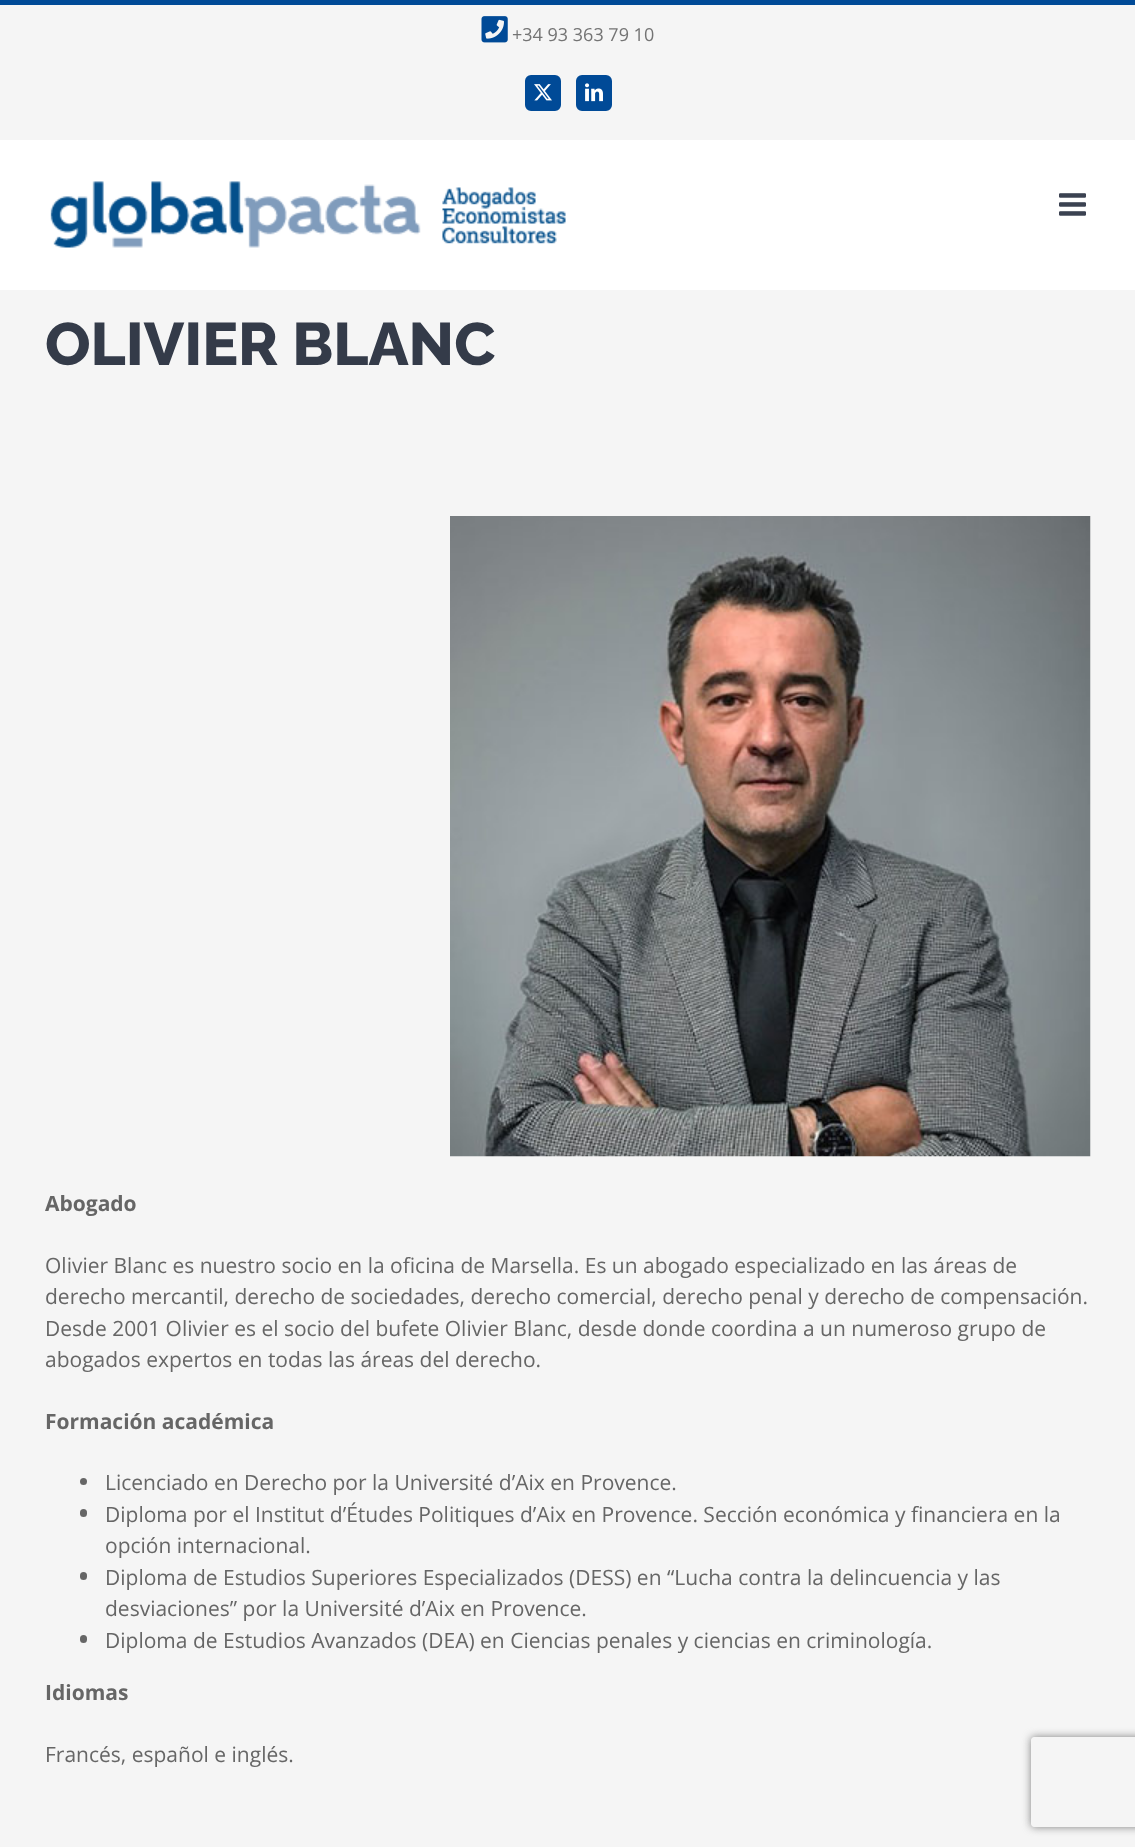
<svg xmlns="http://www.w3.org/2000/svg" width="1135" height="1847">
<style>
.a{font:18px Open Sans;fill:#747474}
.b{font:800 60px Raleway;fill:#343b49}
.c{font:bold 21px Open Sans;fill:#666}
.d{font:21px Open Sans;fill:#666}
</style>
<defs>
<clipPath id="clip1"><path d="M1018 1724h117v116h-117zm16 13h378c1.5 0 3 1.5 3 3v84c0 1.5-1.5 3-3 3h-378c-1.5 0-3-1.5-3-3v-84c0-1.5 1.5-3 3-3z" clip-rule="evenodd"/></clipPath>
</defs>
<rect width="100%" height="100%" fill="#f5f5f5"/>
<path fill="#004a97" d="M0 0h1135v5H0z"/>
<image href="1.png" x="481" y="16" width="27" height="27"/>
<rect fill="#004a97" stroke="#004a97" stroke-width="2" x="526" y="76" width="34" height="34" rx="5"/>
<image href="2.png" x="534" y="84" width="18" height="17"/>
<rect fill="#004a97" stroke="#004a97" stroke-width="2" x="577" y="76" width="34" height="34" rx="5"/>
<image href="3.png" x="585" y="83" width="18" height="19"/>
<path fill="#fff" d="M0 140h1135v150H0z"/>
<image href="4.png" x="50" y="181" width="516" height="67"/>
<image href="5.png" x="1059" y="193" width="27" height="23"/>
<image href="6.png" x="450" y="516" width="641" height="641"/>
<circle fill="#666" cx="83.5" cy="1481.5" r="3.5"/>
<rect fill="#666" x="80" y="1509" width="7" height="8" rx="3.5"/>
<rect fill="#666" x="80" y="1572" width="7" height="8" rx="3.5"/>
<rect fill="#666" x="80" y="1635" width="7" height="8" rx="3.5"/>
<g clip-path="url(#clip1)">
<rect fill="#808080" filter="blur(4px)" x="1031" y="1737" width="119" height="90" rx="3"/>
</g>
<text class="a" x="512" y="41">+34 93 363 79 10</text>
<text class="b" x="45" y="365">OLIVIER BLANC</text>
<text class="c" x="45" y="1211">Abogado</text>
<text class="d" x="45" y="1273">Olivier Blanc es nuestro socio en la oficina de Marsella. Es un abogado especializado en las áreas de</text>
<text class="d" x="45" y="1304">derecho mercantil, derecho de sociedades, derecho comercial, derecho penal y derecho de compensación.</text>
<text class="d" x="45" y="1336">Desde 2001 Olivier es el socio del bufete Olivier Blanc, desde donde coordina a un numeroso grupo de</text>
<text class="d" x="45" y="1367">abogados expertos en todas las áreas del derecho.</text>
<text class="c" x="45" y="1429">Formación académica</text>
<text class="d" x="105" y="1490">Licenciado en Derecho por la Université d’Aix en Provence.</text>
<text class="d" x="105" y="1522">Diploma por el Institut d’Études Politiques d’Aix en Provence. Sección económica y financiera en la</text>
<text class="d" x="105" y="1553">opción internacional.</text>
<text class="d" x="105" y="1585">Diploma de Estudios Superiores Especializados (DESS) en “Lucha contra la delincuencia y las</text>
<text class="d" x="105" y="1616">desviaciones” por la Université d’Aix en Provence.</text>
<text class="d" x="105" y="1648">Diploma de Estudios Avanzados (DEA) en Ciencias penales y ciencias en criminología.</text>
<text class="c" x="45" y="1700">Idiomas</text>
<text class="d" x="45" y="1762">Francés, español e inglés.</text>
</svg>
